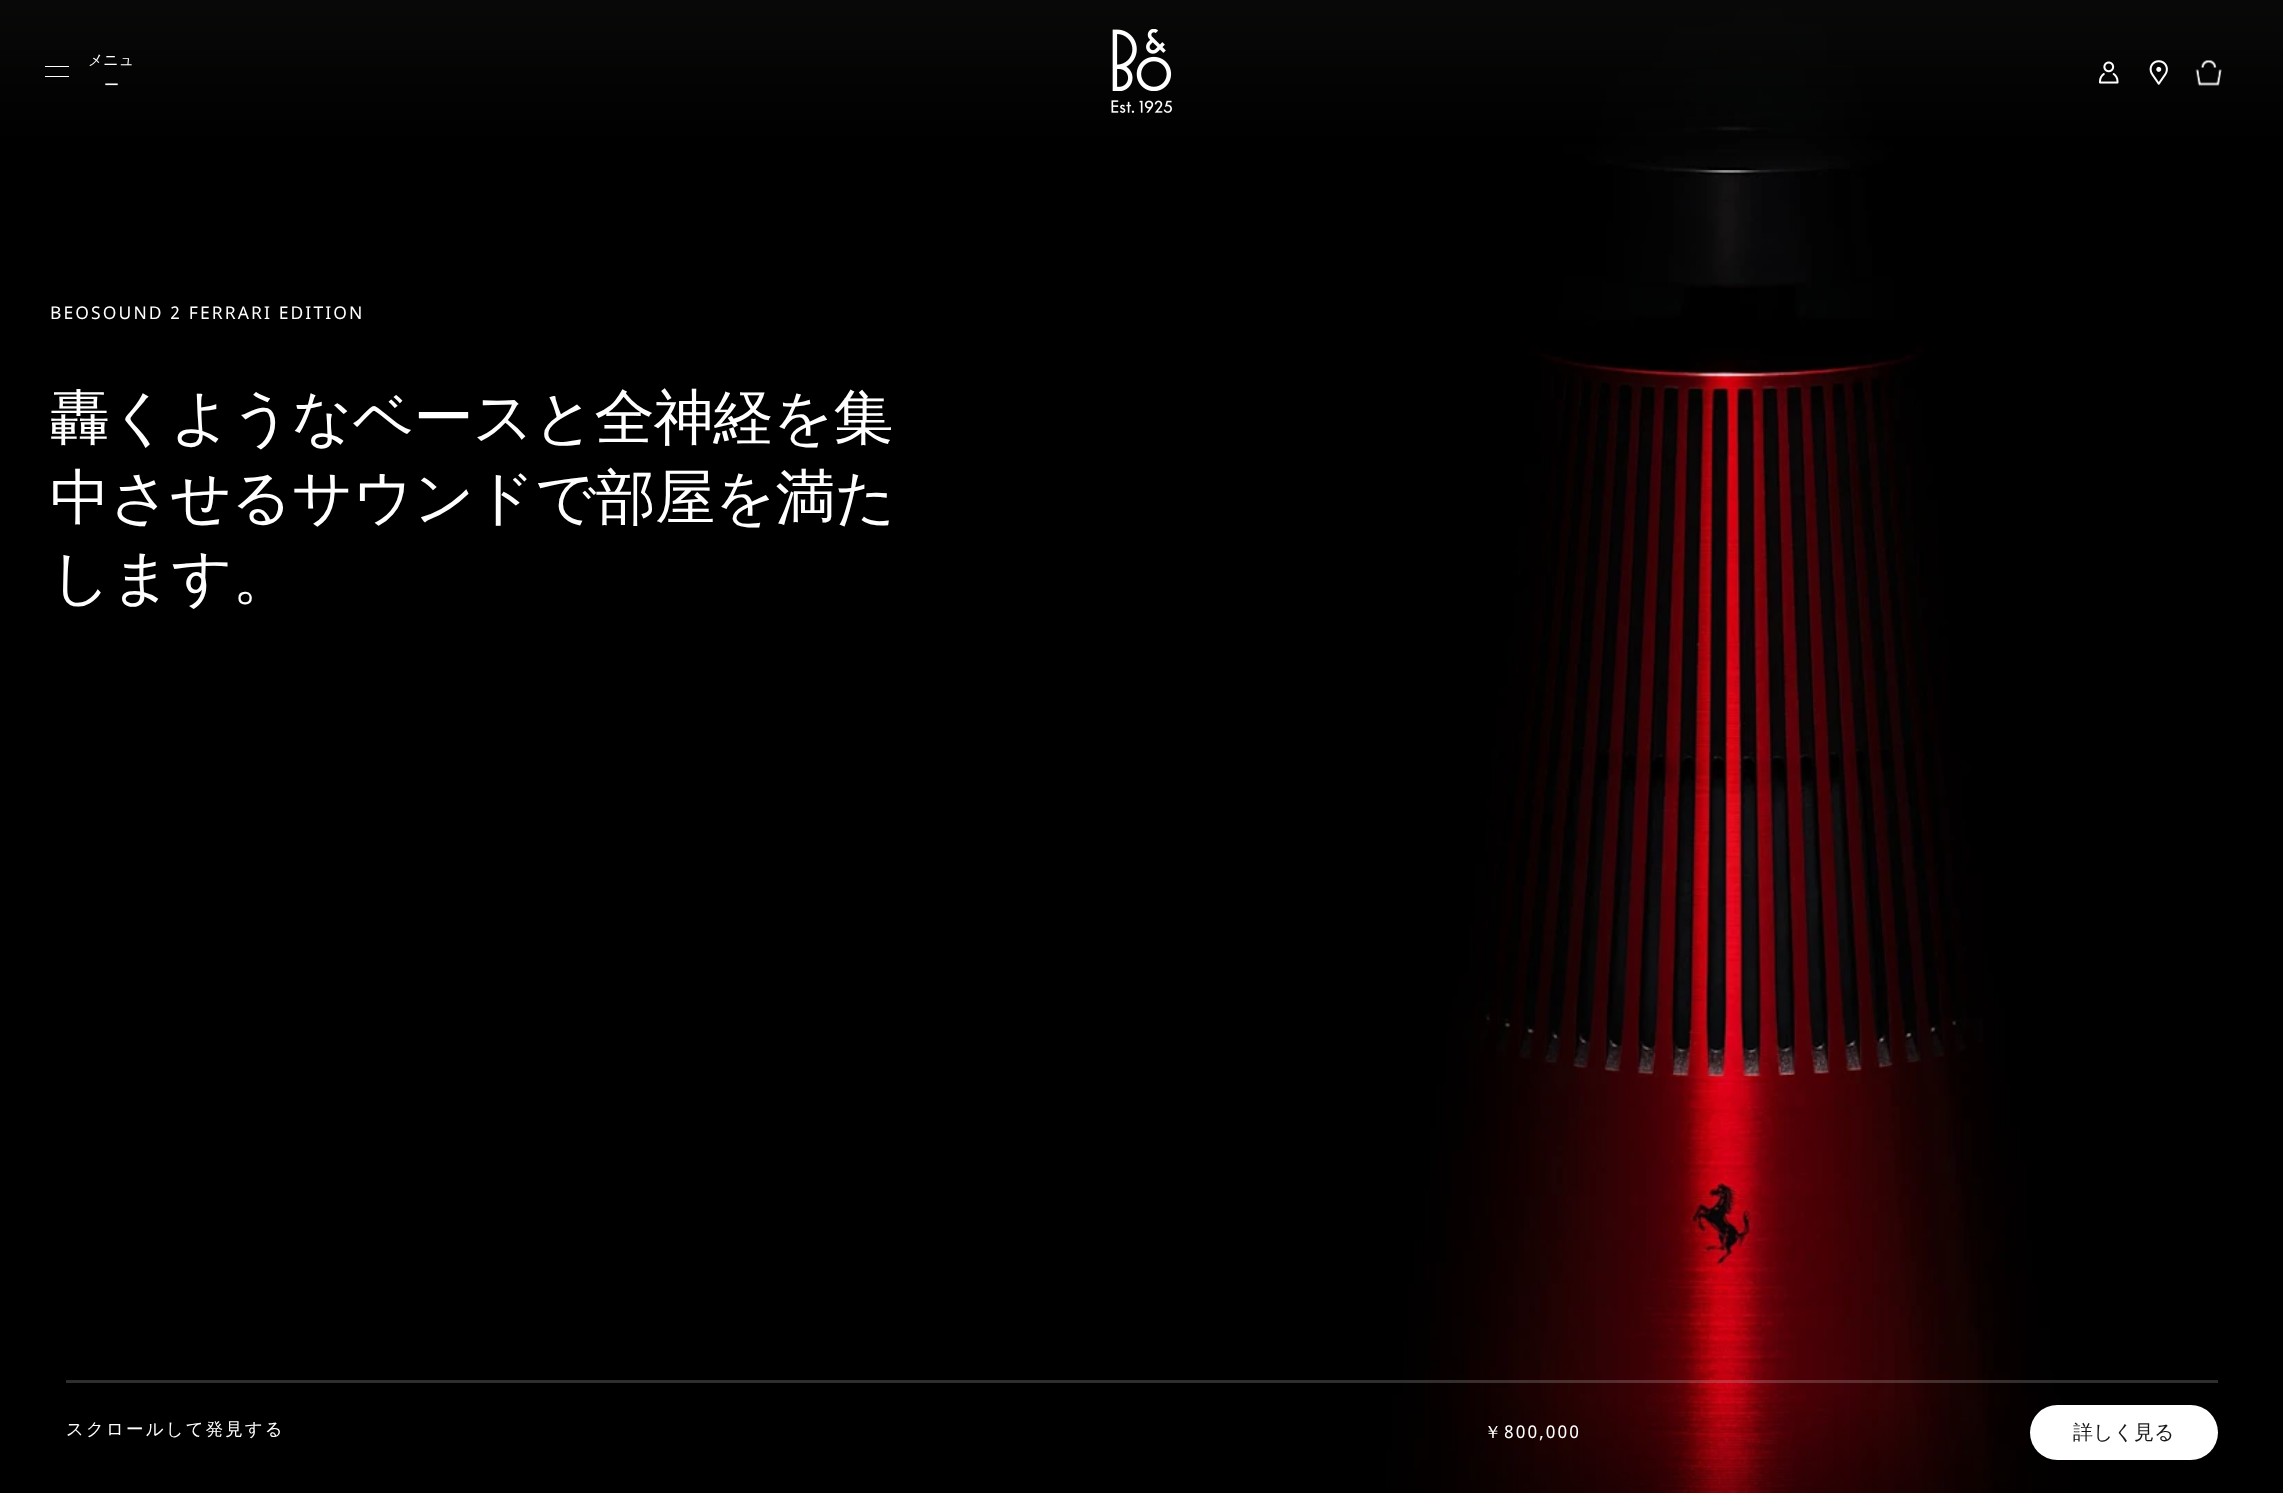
<svg xmlns="http://www.w3.org/2000/svg" width="2283" height="1493">
<style>
.a{font:500 15px WenQuanYi Zen Hei;fill:#fff}
.b{font:17.5px Noto Sans;letter-spacing:2.1px;fill:#fff}
.c{font:500 60px WenQuanYi Zen Hei;letter-spacing:-0.6px;fill:#fff}
.d{font:500 17.5px WenQuanYi Zen Hei;letter-spacing:2.1px;fill:#fff}
.e{font:500 20px WenQuanYi Zen Hei;fill:#191817}
</style>
<rect width="100%" height="100%" fill="#fff"/>
<image href="6.png" x="0" y="0" width="2283" height="1493"/>
<path fill="#fff" d="M45 66h24v1H45z"/>
<path fill="#fff" d="M45 76h24v1H45z"/>
<image href="1.png" x="1112" y="29" width="60" height="62"/>
<image href="2.png" x="1111" y="100" width="61" height="13"/>
<image href="3.png" x="2099" y="61" width="20" height="23"/>
<image href="4.png" x="2149" y="60" width="19" height="25"/>
<image href="5.png" x="2195" y="60" width="27" height="26"/>
<path fill="#e5e5e533" d="M66 1380h2152v3H66z"/>
<rect fill="#fff" x="2030" y="1405" width="188" height="55" rx="27.5"/>
<text class="a" x="88" y="65">メニュ</text>
<text class="a" x="104" y="90">ー</text>
<text class="b" x="50" y="319">BEOSOUND 2 FERRARI EDITION</text>
<text class="c" x="50" y="438">轟くようなベースと全神経を集</text>
<text class="c" x="50" y="518">中させるサウンドで部屋を満た</text>
<text class="c" x="50" y="598">します。</text>
<text class="d" x="66" y="1435">スクロールして発見する</text>
<text class="d" x="1484" y="1438">￥</text>
<text class="b" x="1504" y="1438">800,000</text>
<text class="e" x="2073" y="1439">詳しく見る</text>
</svg>
